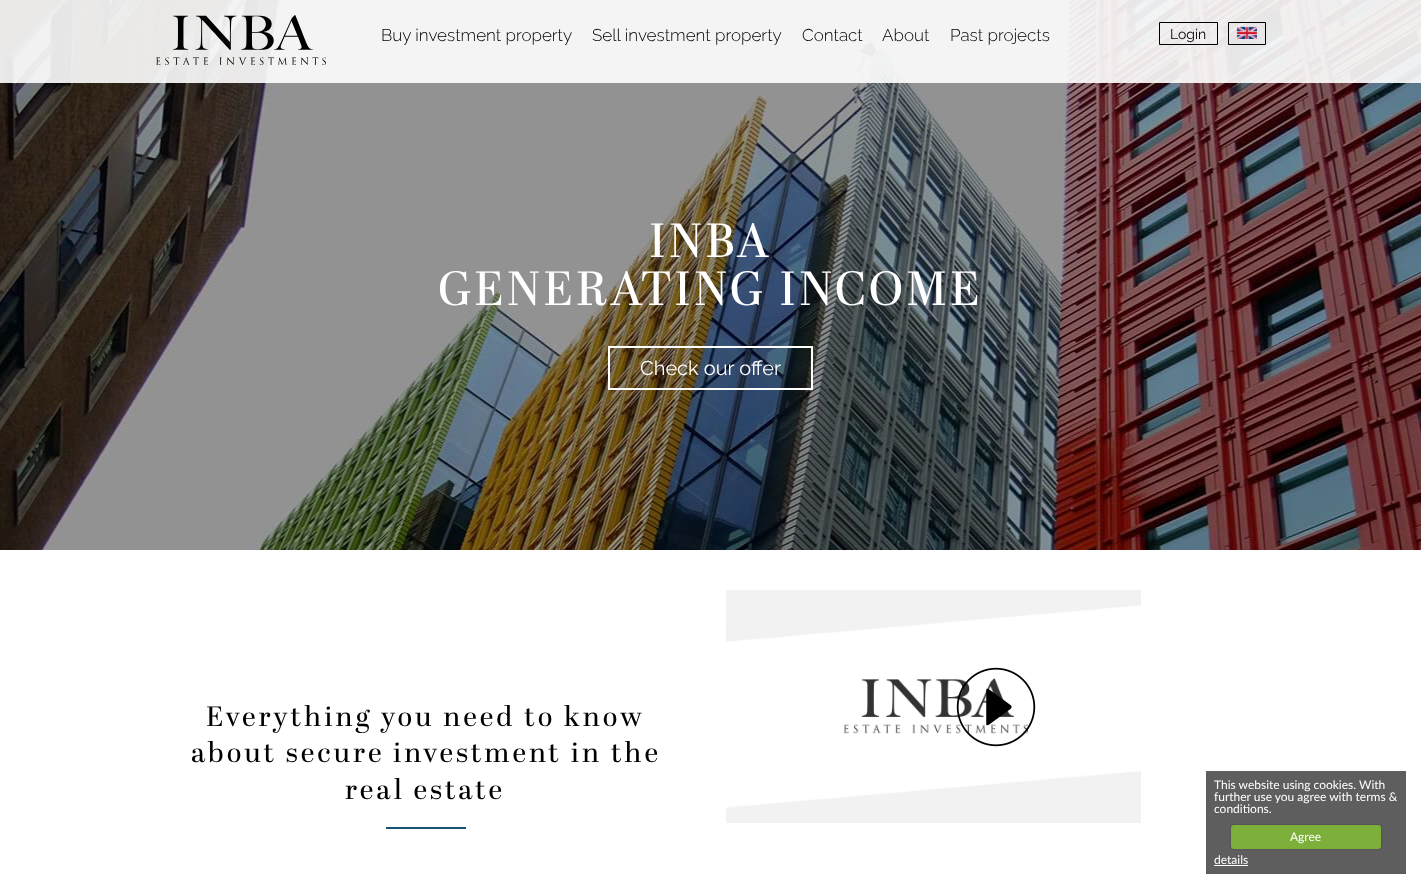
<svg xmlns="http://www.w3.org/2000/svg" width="1421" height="889">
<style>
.a{font:300 17px Raleway;fill:#000}
.b{font:14px Raleway;fill:#000}
.c{font:48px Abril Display;letter-spacing:3px;fill:#fff}
.d{font:20px Raleway;fill:#fff}
.e{font:28px Abril Display;letter-spacing:3px;fill:#000}
.f{font:12px Lato;fill:#fff}
</style>
<rect width="100%" height="100%" fill="#fff"/>
<image href="3.png" x="0" y="0" width="1421" height="550"/>
<path fill="#ffffffe6" d="M0 0h1421v83H0z"/>
<image href="1.png" x="156" y="15" width="170" height="50"/>
<path fill="none" stroke="#000" d="M1159.5 22.5h58v22H1159.5z"/>
<path fill="none" stroke="#000" d="M1228.5 22.5h37v22H1228.5z"/>
<image href="2.png" x="1236" y="26" width="21" height="13"/>
<path fill="none" stroke="#fff" stroke-width="2" d="M609 347h203v42H609z"/>
<path fill="#185371" d="M386 827h80v2H386z"/>
<image href="4.png" x="726" y="590" width="415" height="233"/>
<image href="5.png" x="956" y="667" width="80" height="80"/>
<path fill="#5e5e5e" d="M1206 771h200v103H1206z"/>
<rect fill="#00000040" filter="blur(1px)" x="1231" y="825" width="150" height="24" rx="3"/>
<rect fill="#7daf3b" x="1231" y="825" width="150" height="24" rx="3"/>
<path fill="#fff" d="M1214 865h34v1H1214z"/>
<text class="a" x="381" y="41">Buy investment property</text>
<text class="a" x="592" y="41">Sell investment property</text>
<text class="a" x="802" y="41">Contact</text>
<text class="a" x="882" y="41">About</text>
<text class="a" x="950" y="41">Past projects</text>
<text class="b" x="1170" y="39">Login</text>
<text class="c" x="649" y="257">INBA</text>
<text class="c" x="438" y="305">GENERATING INCOME</text>
<text class="d" x="640" y="375">Check our offer</text>
<text class="e" x="206" y="726">Everything you need to know</text>
<text class="e" x="191" y="762">about secure investment in the</text>
<text class="e" x="345" y="799">real estate</text>
<text class="f" x="1214" y="789">This website using cookies. With</text>
<text class="f" x="1214" y="801">further use you agree with terms &amp;</text>
<text class="f" x="1214" y="813">conditions.</text>
<text class="f" x="1290" y="841">Agree</text>
<text class="f" x="1214" y="864">details</text>
</svg>
